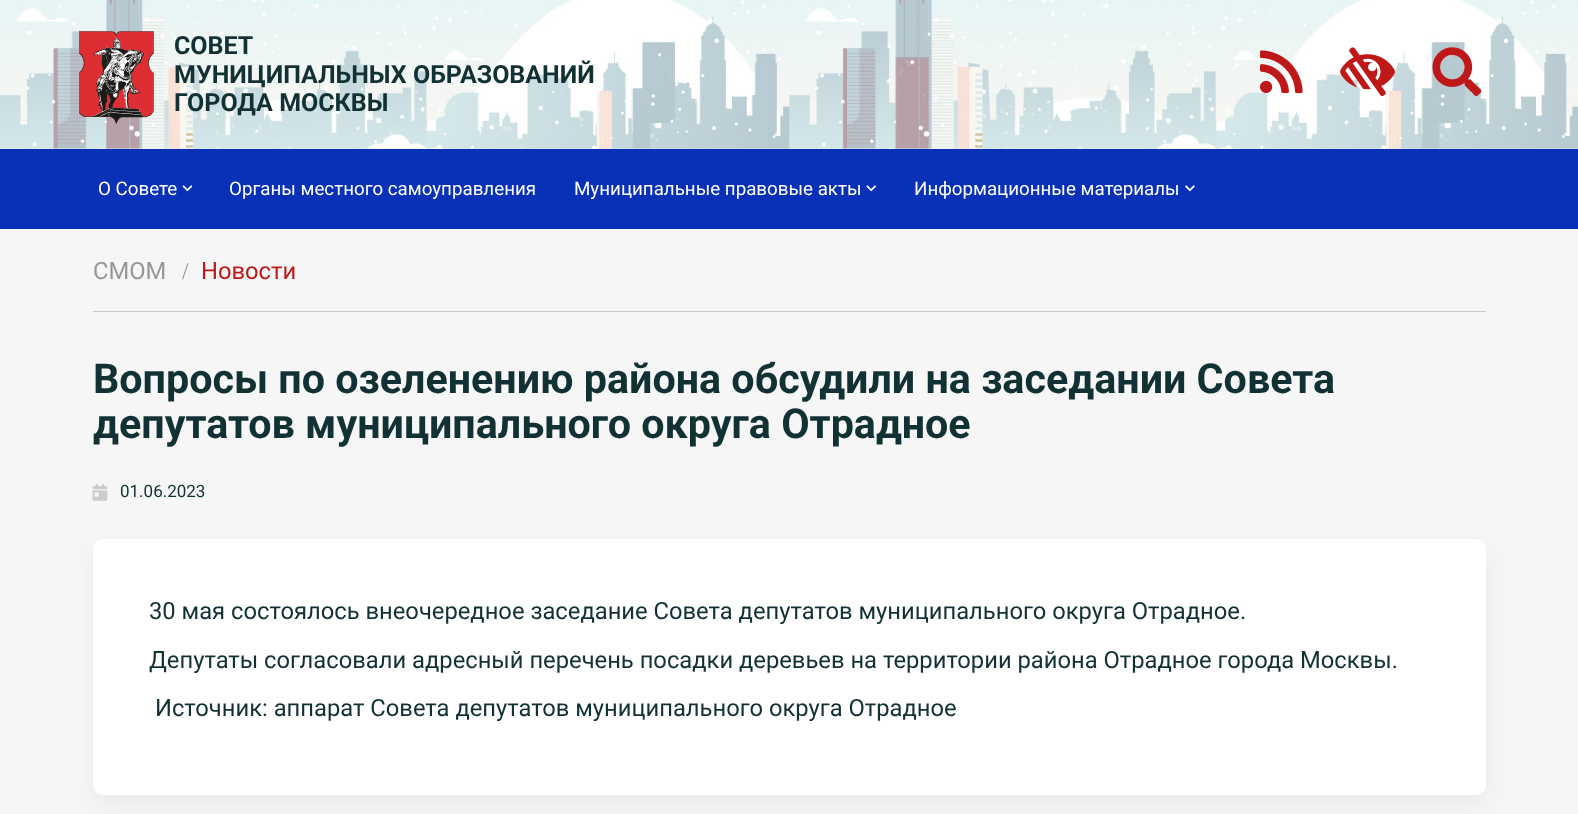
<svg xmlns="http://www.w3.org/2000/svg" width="1578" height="814">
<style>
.a{font:bold 25px Roboto;fill:#123135}
.b{font:18.75px Roboto;fill:#fff}
.c{font:23.75px Roboto;fill:#95989a}
.d{font:23.75px Liberation Serif;fill:#95989a}
.e{font:23.75px Roboto;fill:#be1819}
.f{font:bold 41.25px Roboto;fill:#123135}
.g{font:17px Roboto;fill:#123135}
.h{font:23.75px Roboto;fill:#123135}
</style>
<rect width="100%" height="100%" fill="#f6f6f6"/>
<image href="1.png" x="0" y="0" width="1578" height="149"/>
<image href="2.png" x="79" y="31" width="75" height="93"/>
<image href="3.png" x="1260" y="50" width="43" height="44"/>
<image href="4.png" x="1340" y="47" width="55" height="50"/>
<image href="5.png" x="1432" y="47" width="50" height="50"/>
<path fill="#0931b7" d="M0 149h1578v80H0z"/>
<image href="6.png" x="182" y="185" width="11" height="7"/>
<image href="7.png" x="866" y="185" width="10" height="7"/>
<image href="8.png" x="1185" y="185" width="10" height="7"/>
<path fill="#c9c9c9" d="M93 311h1393v1H93z"/>
<image href="9.png" x="92" y="484" width="16" height="17"/>
<rect fill="#0000000d" filter="blur(12.5px)" x="93" y="549" width="1393" height="256" rx="10"/>
<rect fill="#fff" x="93" y="539" width="1393" height="256" rx="10"/>
<text class="a" x="174" y="54">СОВЕТ</text>
<text class="a" x="174" y="83">МУНИЦИПАЛЬНЫХ ОБРАЗОВАНИЙ</text>
<text class="a" x="174" y="111">ГОРОДА МОСКВЫ</text>
<text class="b" x="98" y="195">О Совете</text>
<text class="b" x="229" y="195">Органы местного самоуправления</text>
<text class="b" x="574" y="195">Муниципальные правовые акты</text>
<text class="b" x="914" y="195">Информационные материалы</text>
<text class="c" x="93" y="279">СМОМ</text>
<text class="d" x="182" y="279">/</text>
<text class="e" x="201" y="279">Новости</text>
<text class="f" x="93" y="393">Вопросы по озеленению района обсудили на заседании Совета</text>
<text class="f" x="93" y="438">депутатов муниципального округа Отрадное</text>
<text class="g" x="120" y="497">01.06.2023</text>
<text class="h" x="149" y="619">30 мая состоялось внеочередное заседание Совета депутатов муниципального округа Отрадное.</text>
<text class="h" x="149" y="668">Депутаты согласовали адресный перечень посадки деревьев на территории района Отрадное города Москвы.</text>
<text class="h" x="155" y="716">Источник: аппарат Совета депутатов муниципального округа Отрадное</text>
</svg>
